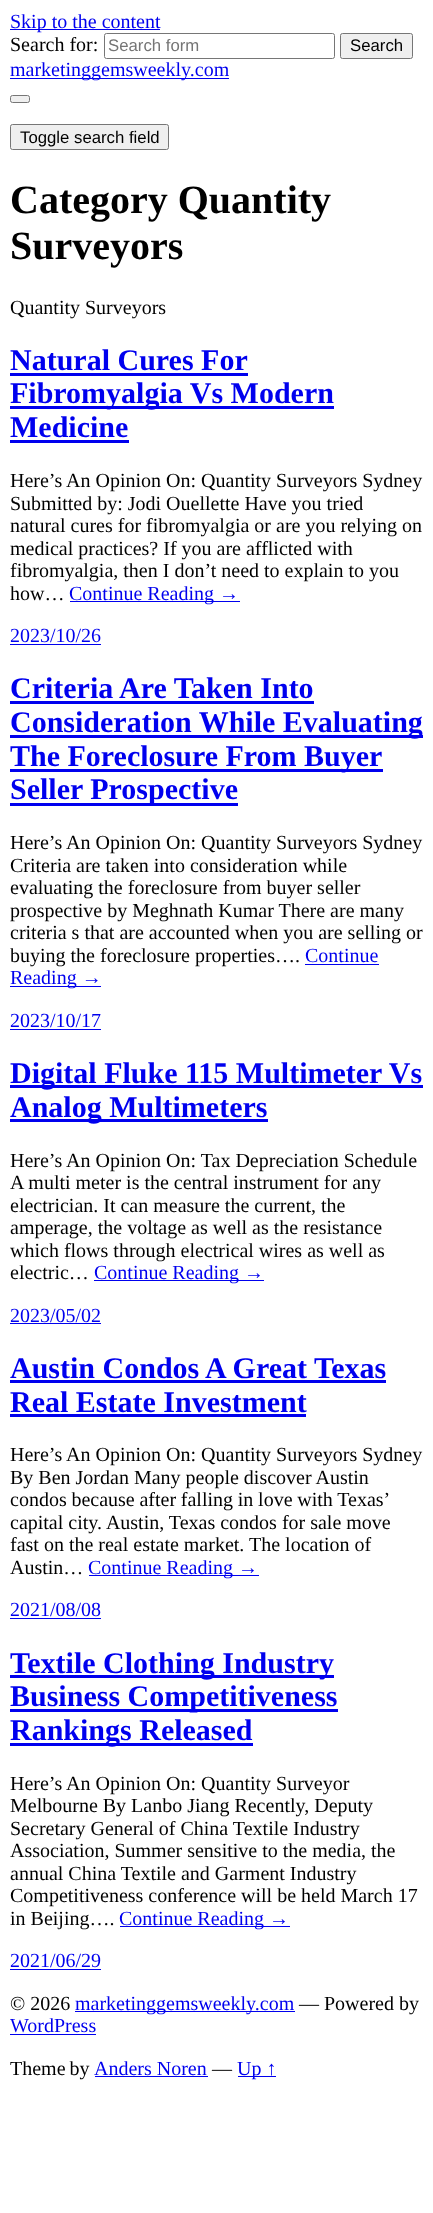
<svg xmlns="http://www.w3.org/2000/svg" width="433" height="2213">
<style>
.a{font:20px Liberation Serif;fill:#00e}
.b{font:20px Liberation Serif;fill:#000}
.c{font:16.75px Liberation Sans;fill:#757575}
.d{font:16.75px Liberation Sans;fill:#000}
.e{font:bold 40px Liberation Serif;fill:#000}
.f{font:bold 30px Liberation Serif;fill:#00e}
</style>
<rect width="100%" height="100%" fill="#fff"/>
<path fill="#00e" d="M10 29h150v1H10z"/>
<rect fill="none" stroke="#767676" x="104.5" y="33.5" width="230" height="25" rx="2"/>
<rect fill="#efefef" stroke="#767676" x="340.5" y="33.5" width="72" height="25" rx="2"/>
<path fill="#00e" d="M10 78h219v1H10z"/>
<rect fill="#efefef" stroke="#767676" x="10.5" y="95.5" width="19" height="7" rx="2"/>
<rect fill="#efefef" stroke="#767676" x="10.5" y="124.5" width="158" height="25" rx="2"/>
<path fill="#00e" d="M10 373h238v3H10z"/>
<path fill="#00e" d="M10 406h324v3H10z"/>
<path fill="#00e" d="M10 440h119v3H10z"/>
<path fill="#00e" d="M70 601h170v1H70z"/>
<path fill="#00e" d="M10 644h91v1H10z"/>
<path fill="#00e" d="M10 701h304v3H10z"/>
<path fill="#00e" d="M10 735h413v3H10z"/>
<path fill="#00e" d="M10 769h373v3H10z"/>
<path fill="#00e" d="M10 803h228v3H10z"/>
<path fill="#00e" d="M305 964h74v1H305z"/>
<path fill="#00e" d="M10 986h91v1H10z"/>
<path fill="#00e" d="M10 1029h91v1H10z"/>
<path fill="#00e" d="M10 1085h413v3H10z"/>
<path fill="#00e" d="M10 1119h258v3H10z"/>
<path fill="#00e" d="M94 1280h170v1H94z"/>
<path fill="#00e" d="M10 1323h91v1H10z"/>
<path fill="#00e" d="M10 1380h376v3H10z"/>
<path fill="#00e" d="M10 1414h296v3H10z"/>
<path fill="#00e" d="M89 1575h170v1H89z"/>
<path fill="#00e" d="M10 1618h91v1H10z"/>
<path fill="#00e" d="M10 1675h324v3H10z"/>
<path fill="#00e" d="M10 1709h328v3H10z"/>
<path fill="#00e" d="M10 1743h243v3H10z"/>
<path fill="#00e" d="M120 1926h170v1H120z"/>
<path fill="#00e" d="M10 1969h91v1H10z"/>
<path fill="#00e" d="M75 2011h220v1H75z"/>
<path fill="#00e" d="M10 2034h86v1H10z"/>
<path fill="#00e" d="M95 2076h113v1H95z"/>
<path fill="#00e" d="M238 2076h38v1H238z"/>
<text class="a" x="10" y="28">Skip to the content</text>
<text class="b" x="10" y="51">Search for:</text>
<text class="c" x="108" y="51">Search form</text>
<text class="d" x="350" y="51">Search</text>
<text class="a" x="10" y="76">marketinggemsweekly.com</text>
<text class="d" x="20" y="143">Toggle search field</text>
<text class="e" x="10" y="213">Category Quantity</text>
<text class="e" x="10" y="259">Surveyors</text>
<text class="b" x="10" y="314">Quantity Surveyors</text>
<text class="f" x="10" y="370">Natural Cures For</text>
<text class="f" x="10" y="403">Fibromyalgia Vs Modern</text>
<text class="f" x="10" y="437">Medicine</text>
<text class="b" x="10" y="487">Here’s An Opinion On: Quantity Surveyors Sydney</text>
<text class="b" x="10" y="510">Submitted by: Jodi Ouellette Have you tried</text>
<text class="b" x="10" y="532">natural cures for fibromyalgia or are you relying on</text>
<text class="b" x="10" y="555">medical practices? If you are afflicted with</text>
<text class="b" x="10" y="577">fibromyalgia, then I don’t need to explain to you</text>
<text class="b" x="10" y="600">how…</text>
<text class="a" x="69" y="600">Continue Reading →</text>
<text class="a" x="10" y="642">2023/10/26</text>
<text class="f" x="10" y="698">Criteria Are Taken Into</text>
<text class="f" x="10" y="732">Consideration While Evaluating</text>
<text class="f" x="10" y="766">The Foreclosure From Buyer</text>
<text class="f" x="10" y="799">Seller Prospective</text>
<text class="b" x="10" y="849">Here’s An Opinion On: Quantity Surveyors Sydney</text>
<text class="b" x="10" y="872">Criteria are taken into consideration while</text>
<text class="b" x="10" y="894">evaluating the foreclosure from buyer seller</text>
<text class="b" x="10" y="917">prospective by Meghnath Kumar There are many</text>
<text class="b" x="10" y="939">criteria s that are accounted when you are selling or</text>
<text class="b" x="10" y="962">buying the foreclosure properties….</text>
<text class="a" x="305" y="962">Continue</text>
<text class="a" x="10" y="984">Reading →</text>
<text class="a" x="10" y="1027">2023/10/17</text>
<text class="f" x="10" y="1083">Digital Fluke 115 Multimeter Vs</text>
<text class="f" x="10" y="1117">Analog Multimeters</text>
<text class="b" x="10" y="1167">Here’s An Opinion On: Tax Depreciation Schedule</text>
<text class="b" x="10" y="1189">A multi meter is the central instrument for any</text>
<text class="b" x="10" y="1212">electrician. It can measure the current, the</text>
<text class="b" x="10" y="1234">amperage, the voltage as well as the resistance</text>
<text class="b" x="10" y="1257">which flows through electrical wires as well as</text>
<text class="b" x="10" y="1279">electric…</text>
<text class="a" x="94" y="1279">Continue Reading →</text>
<text class="a" x="10" y="1322">2023/05/02</text>
<text class="f" x="10" y="1378">Austin Condos A Great Texas</text>
<text class="f" x="10" y="1412">Real Estate Investment</text>
<text class="b" x="10" y="1461">Here’s An Opinion On: Quantity Surveyors Sydney</text>
<text class="b" x="10" y="1484">By Ben Jordan Many people discover Austin</text>
<text class="b" x="10" y="1506" word-spacing="-0.25">condos because after falling in love with Texas’</text>
<text class="b" x="10" y="1529">capital city. Austin, Texas condos for sale move</text>
<text class="b" x="10" y="1551">fast on the real estate market. The location of</text>
<text class="b" x="10" y="1574">Austin…</text>
<text class="a" x="88" y="1574">Continue Reading →</text>
<text class="a" x="10" y="1616">2021/08/08</text>
<text class="f" x="10" y="1673">Textile Clothing Industry</text>
<text class="f" x="10" y="1706">Business Competitiveness</text>
<text class="f" x="10" y="1740">Rankings Released</text>
<text class="b" x="10" y="1790">Here’s An Opinion On: Quantity Surveyor</text>
<text class="b" x="10" y="1812">Melbourne By Lanbo Jiang Recently, Deputy</text>
<text class="b" x="10" y="1835">Secretary General of China Textile Industry</text>
<text class="b" x="10" y="1857">Association, Summer sensitive to the media, the</text>
<text class="b" x="10" y="1880">annual China Textile and Garment Industry</text>
<text class="b" x="10" y="1902">Competitiveness conference will be held March 17</text>
<text class="b" x="10" y="1925">in Beijing….</text>
<text class="a" x="119" y="1925">Continue Reading →</text>
<text class="a" x="10" y="1967">2021/06/29</text>
<text class="b" x="10" y="2010">© 2026</text>
<text class="a" x="75" y="2010">marketinggemsweekly.com</text>
<text class="b" x="299" y="2010">— Powered by</text>
<text class="a" x="10" y="2032">WordPress</text>
<text class="b" x="10" y="2075" word-spacing="-1">Theme by</text>
<text class="a" x="94" y="2075">Anders Noren</text>
<text class="b" x="212" y="2075">—</text>
<text class="a" x="237" y="2075">Up ↑</text>
</svg>
